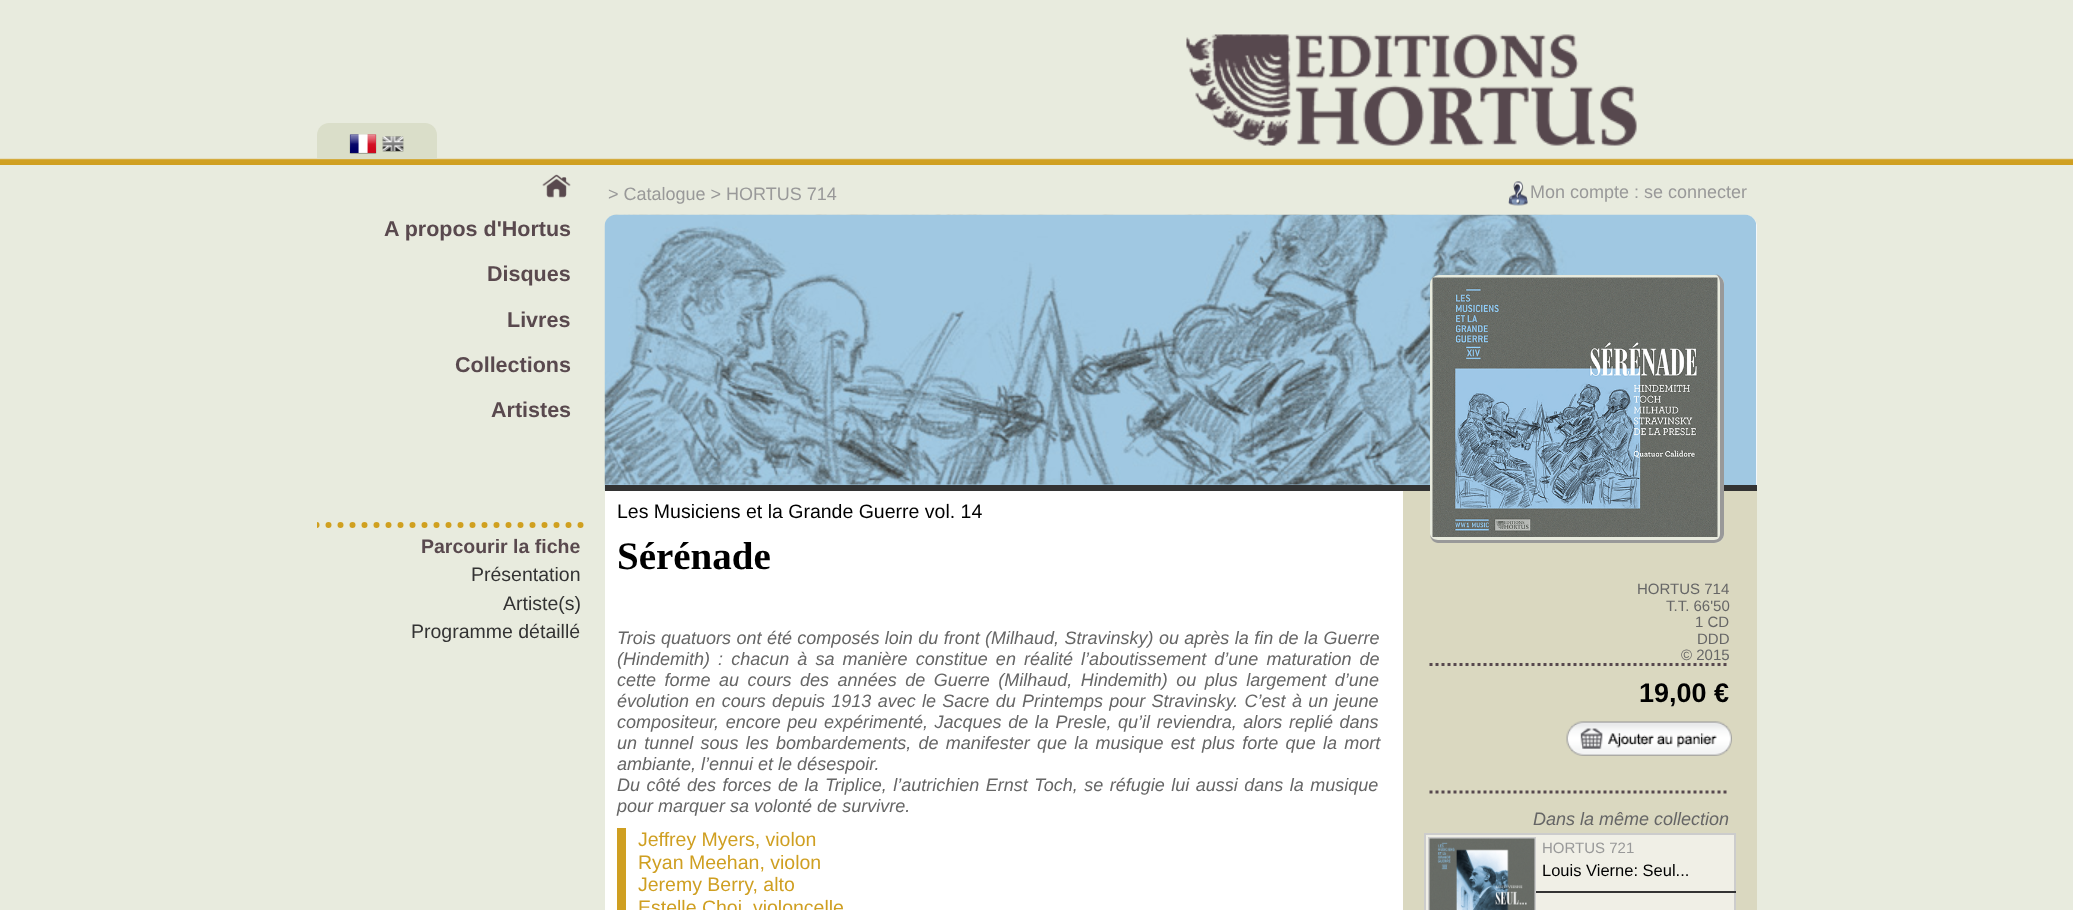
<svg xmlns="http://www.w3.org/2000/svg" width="2073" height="910">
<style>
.a{font:18px Liberation Sans;fill:#999}
.b{font:bold 21.5px Liberation Sans;fill:#59494e}
.c{font:bold 19.5px Liberation Sans;fill:#59494e}
.d{font:19.5px Liberation Sans;fill:#333}
.e{font:19.5px Liberation Sans;fill:#000}
.f{font:bold 39px Liberation Serif;fill:#000}
.g{font:italic 18px Liberation Sans;fill:#666}
.h{font:19.5px Liberation Sans;fill:#cf9f21}
.i{font:15px Liberation Sans;fill:#666}
.j{font:bold 27px Liberation Sans;fill:#000}
.k{font:15px Liberation Sans;fill:#999}
.l{font:16.5px Liberation Sans;fill:#000}
</style>
<defs>
<clipPath id="clip1"><path d="M317 12h1440v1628H317z"/></clipPath>
</defs>
<rect width="100%" height="100%" fill="#e8ebde"/>
<image href="1.png" x="0" y="158" width="2073" height="7"/>
<path fill="#dadec9" d="M329 123h96c6.5 0 12 5.5 12 12v24h-120v-24c0-6.5 5.5-12 12-12z"/>
<image href="2.png" x="349" y="134" width="28" height="20"/>
<image href="3.png" x="382" y="136" width="22" height="16"/>
<image href="4.png" x="1186" y="34" width="451" height="112"/>
<image href="5.png" x="1508" y="181" width="20" height="25"/>
<image href="6.png" x="542" y="174" width="29" height="24"/>
<g clip-path="url(#clip1)">
<path fill="none" stroke="#d0a020" stroke-width="6" stroke-linecap="round" stroke-dasharray="0 12" d="M316.5 525h270"/>
</g>
<rect fill="#fff" x="605" y="215" width="1152" height="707" rx="12"/>
<image href="7.png" x="604" y="214" width="1153" height="277"/>
<path fill="#333" d="M605 485h1152v6H605z"/>
<path fill="#dad8c0" d="M1403 491h354v419H1403z"/>
<rect fill="#e8ebde" x="1430" y="275" width="294" height="268" rx="9"/>
<path fill="#999" fill-rule="evenodd" d="M1438 274h276c5 0 10 5 10 10v250c0 5-5 9-10 9h-276c-4 0-8-4-8-9v-250c0-5 4-10 8-10zm0 0h276c4 0 6 5 6 10v250c0 3-2 6-6 6h-276c-4 0-8-3-8-6v-250c0-5 4-10 8-10z"/>
<image href="8.png" x="1432" y="277" width="286" height="260"/>
<path fill="#cf9f21" d="M617 828h9v82H617z"/>
<path fill="none" stroke="#57484e" stroke-width="3" stroke-dasharray="3 3" d="M1429.5 664.5h300"/>
<image href="9.png" x="1566" y="721" width="166" height="35"/>
<path fill="none" stroke="#57484e" stroke-width="3" stroke-dasharray="3 3" d="M1429.5 792h300"/>
<path fill="#f0efe6" d="M1426 835h110v75H1426z"/>
<path fill="#ccc" d="M1424 833h312v2H1424z"/>
<path fill="#ccc" d="M1424 833h2v77H1424z"/>
<path fill="none" stroke="#ccc" stroke-width="2" d="M1429 838h106v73H1429z"/>
<image href="10.png" x="1429" y="838" width="106" height="72"/>
<path fill="#f0efe6" d="M1536 835h198v56H1536z"/>
<path fill="#ccc" d="M1734 833h2v77H1734z"/>
<path fill="#333" d="M1536 891h200v2H1536z"/>
<path fill="#f0efe6" d="M1536 893h198v17H1536z"/>
<text class="a" x="608" y="200">&gt; Catalogue &gt; HORTUS 714</text>
<text class="a" x="1530" y="198">Mon compte : se connecter</text>
<text class="b" x="384" y="236">A propos d'Hortus</text>
<text class="b" x="487" y="281">Disques</text>
<text class="b" x="507" y="327">Livres</text>
<text class="b" x="455" y="372">Collections</text>
<text class="b" x="491" y="417">Artistes</text>
<text class="c" x="421" y="553">Parcourir la fiche</text>
<text class="d" x="471" y="581">Présentation</text>
<text class="d" x="503" y="610">Artiste(s)</text>
<text class="d" x="411" y="638">Programme détaillé</text>
<text class="e" x="617" y="518">Les Musiciens et la Grande Guerre vol. 14</text>
<text class="f" x="617" y="569">Sérénade</text>
<text class="g" x="617" y="644" word-spacing="0.4">Trois quatuors ont été composés loin du front (Milhaud, Stravinsky) ou après la fin de la Guerre</text>
<text class="g" x="617" y="665" word-spacing="3.1">(Hindemith) : chacun à sa manière constitue en réalité l’aboutissement d’une maturation de</text>
<text class="g" x="617" y="686" word-spacing="3.5">cette forme au cours des années de Guerre (Milhaud, Hindemith) ou plus largement d’une</text>
<text class="g" x="617" y="707" word-spacing="1.3">évolution en cours depuis 1913 avec le Sacre du Printemps pour Stravinsky. C’est à un jeune</text>
<text class="g" x="617" y="728" word-spacing="1.6">compositeur, encore peu expérimenté, Jacques de la Presle, qu’il reviendra, alors replié dans</text>
<text class="g" x="617" y="749" word-spacing="2.25">un tunnel sous les bombardements, de manifester que la musique est plus forte que la mort</text>
<text class="g" x="617" y="770">ambiante, l’ennui et le désespoir.</text>
<text class="g" x="617" y="791" word-spacing="1.5">Du côté des forces de la Triplice, l’autrichien Ernst Toch, se réfugie lui aussi dans la musique</text>
<text class="g" x="617" y="812">pour marquer sa volonté de survivre.</text>
<text class="h" x="638" y="846">Jeffrey Myers, violon</text>
<text class="h" x="638" y="869">Ryan Meehan, violon</text>
<text class="h" x="638" y="891">Jeremy Berry, alto</text>
<text class="h" x="638" y="914">Estelle Choi, violoncelle</text>
<text class="i" x="1637" y="594">HORTUS 714</text>
<text class="i" x="1666" y="611">T.T. 66'50</text>
<text class="i" x="1695" y="627">1 CD</text>
<text class="i" x="1697" y="644">DDD</text>
<text class="i" x="1681" y="660">© 2015</text>
<text class="j" x="1639" y="702">19,00 €</text>
<text class="g" x="1533" y="825">Dans la même collection</text>
<text class="k" x="1542" y="853">HORTUS 721</text>
<text class="l" x="1542" y="876">Louis Vierne: Seul...</text>
</svg>
